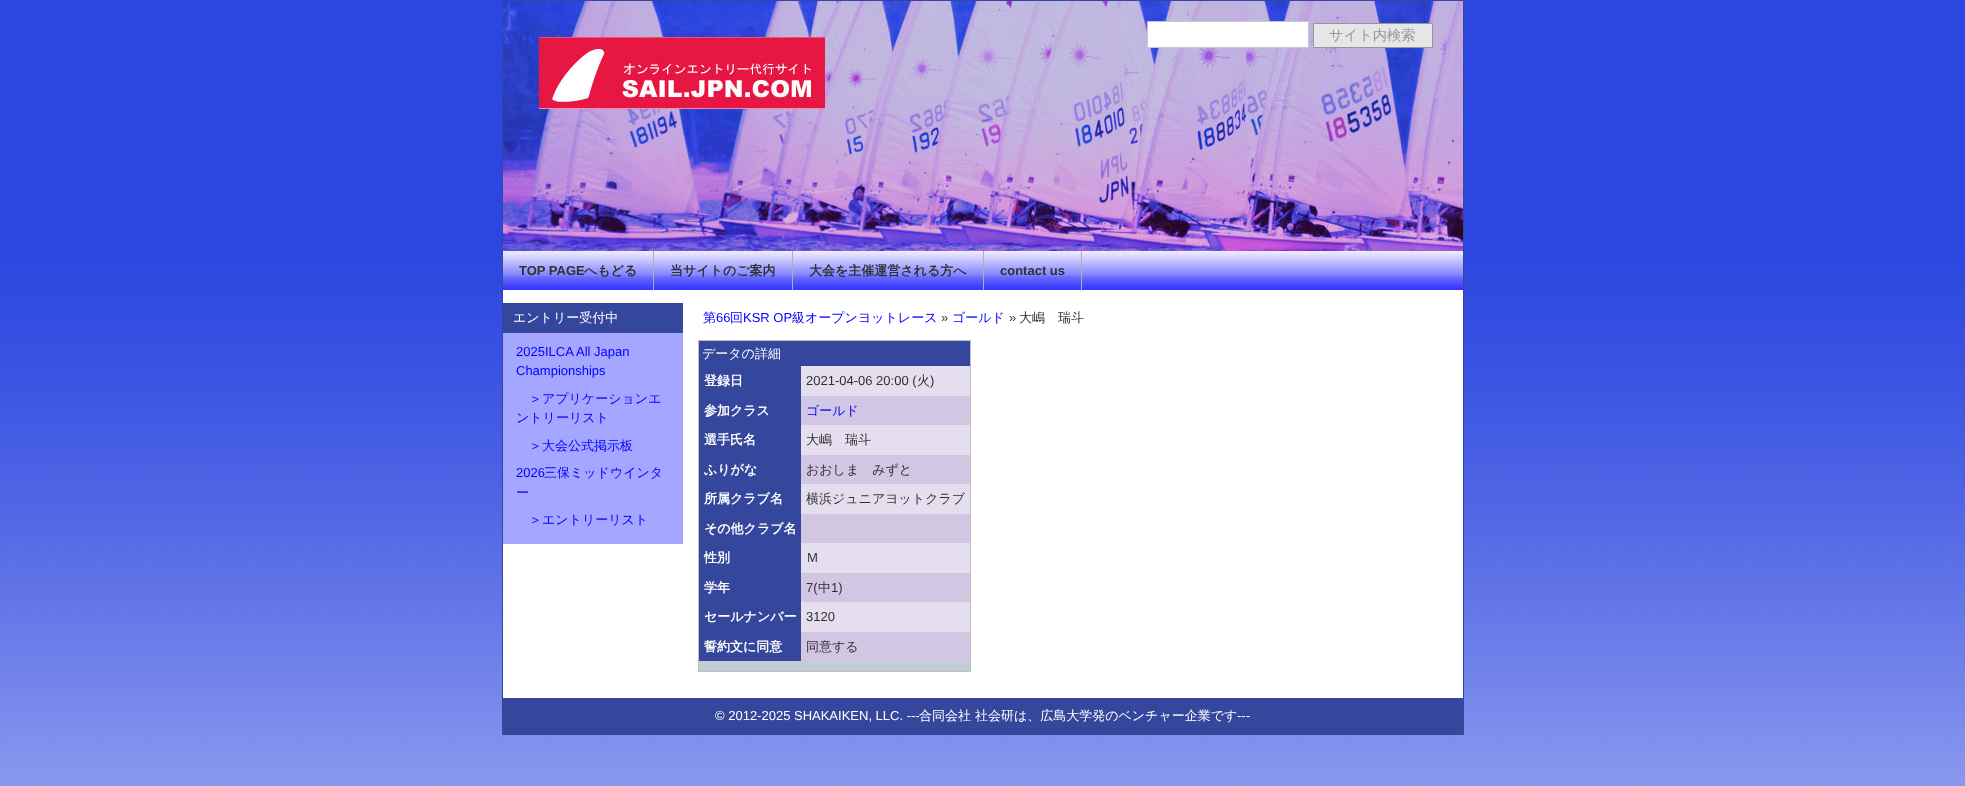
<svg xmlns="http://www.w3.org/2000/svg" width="1965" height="786">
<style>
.a{font:500 14.25px WenQuanYi Zen Hei;fill:#969696}
.b{font:bold 13px Liberation Sans;fill:#313131}
.c{font:bold 13px WenQuanYi Zen Hei;fill:#313131}
.d{font:500 13px WenQuanYi Zen Hei;fill:#fff}
.e{font:13px Liberation Sans;fill:#00f}
.f{font:500 13px WenQuanYi Zen Hei;fill:#00f}
.g{font:13px Liberation Sans;fill:#313131}
.h{font:500 13px WenQuanYi Zen Hei;fill:#313131}
.i{font:bold 13px WenQuanYi Zen Hei;fill:#fff}
.j{font:13px Liberation Sans;fill:#fff}
</style>
<rect width="100%" height="100%" fill="#fff"/>
<image href="1.png" x="0" y="0" width="1965" height="786"/>
<path fill="#fff" d="M503 290h960v408H503z"/>
<path fill="none" stroke="#34479c" d="M502.5 0.5h961v734H502.5z"/>
<image href="2.png" x="503" y="1" width="960" height="250"/>
<path fill="#fff" stroke="#c8c8c8" d="M1147.5 21.5h161v26H1147.5z"/>
<path fill="#e6e6e6" stroke="#969696" d="M1313.5 23.5h119v24H1313.5z"/>
<image href="3.png" x="503" y="251" width="960" height="39"/>
<path fill="#afafaf" d="M653 251h1v39H653z"/>
<path fill="#afafaf" d="M792 251h1v39H792z"/>
<path fill="#afafaf" d="M983 251h1v39H983z"/>
<path fill="#afafaf" d="M1081 251h1v39H1081z"/>
<path fill="#a5a6ff" d="M503 333h180v211H503z"/>
<path fill="#34479c" d="M503 303h180v30H503z"/>
<path fill="#c0c0c0" d="M698 340h273v1H698z"/>
<path fill="#c0c0c0" d="M970 340h1v332H970z"/>
<path fill="#c0c0c0" d="M698 671h273v1H698z"/>
<path fill="#c0c0c0" d="M698 340h1v332H698z"/>
<path fill="#34479c" d="M699 341h271v25H699z"/>
<path fill="#34479c" d="M699 366h102v295H699z"/>
<path fill="#e4deee" d="M801 366h169v30H801z"/>
<path fill="#d2c7e2" d="M801 396h169v29H801z"/>
<path fill="#e4deee" d="M801 425h169v30H801z"/>
<path fill="#d2c7e2" d="M801 455h169v29H801z"/>
<path fill="#e4deee" d="M801 484h169v30H801z"/>
<path fill="#d2c7e2" d="M801 514h169v29H801z"/>
<path fill="#e4deee" d="M801 543h169v30H801z"/>
<path fill="#d2c7e2" d="M801 573h169v29H801z"/>
<path fill="#e4deee" d="M801 602h169v30H801z"/>
<path fill="#d2c7e2" d="M801 632h169v29H801z"/>
<path fill="#c2cdd6" d="M699 661h271v10H699z"/>
<path fill="#34479c" d="M503 698h960v36H503z"/>
<text class="a" x="1329" y="40">サイト内検索</text>
<text class="b" x="519" y="275">TOP PAGE</text>
<text class="c" x="584" y="275">へもどる</text>
<text class="c" x="670" y="275">当サイトのご案内</text>
<text class="c" x="809" y="275">大会を主催運営される方へ</text>
<text class="b" x="1000" y="275">contact us</text>
<text class="d" x="513" y="322">エントリー受付中</text>
<text class="e" x="516" y="356">2025ILCA All Japan</text>
<text class="e" x="516" y="375">Championships</text>
<text class="f" x="529" y="403">＞アプリケーションエ</text>
<text class="f" x="516" y="422">ントリーリスト</text>
<text class="f" x="529" y="450">＞大会公式掲示板</text>
<text class="e" x="516" y="477">2026</text>
<text class="f" x="544" y="477">三保ミッドウインタ</text>
<text class="f" x="516" y="497">ー</text>
<text class="f" x="529" y="524">＞エントリーリスト</text>
<text class="f" x="703" y="322">第</text>
<text class="e" x="716" y="322">66</text>
<text class="f" x="730" y="322">回</text>
<text class="e" x="743" y="322">KSR OP</text>
<text class="f" x="792" y="322">級オープンヨットレース</text>
<text class="g" x="941" y="322">»</text>
<text class="f" x="952" y="322">ゴールド</text>
<text class="g" x="1009" y="322">»</text>
<text class="h" x="1019" y="322">大嶋　瑞斗</text>
<text class="d" x="702" y="358">データの詳細</text>
<text class="i" x="704" y="385">登録日</text>
<text class="g" x="806" y="385">2021-04-06 20:00 (</text>
<text class="h" x="917" y="385">火</text>
<text class="g" x="930" y="385">)</text>
<text class="i" x="704" y="415">参加クラス</text>
<text class="f" x="806" y="415">ゴールド</text>
<text class="i" x="704" y="444">選手氏名</text>
<text class="h" x="806" y="444">大嶋　瑞斗</text>
<text class="i" x="704" y="474">ふりがな</text>
<text class="h" x="806" y="474">おおしま　みずと</text>
<text class="i" x="704" y="503">所属クラブ名</text>
<text class="h" x="806" y="503">横浜ジュニアヨットクラブ</text>
<text class="i" x="704" y="533">その他クラブ名</text>
<text class="i" x="704" y="562">性別</text>
<text class="h" x="806" y="562">Ｍ</text>
<text class="i" x="704" y="592">学年</text>
<text class="g" x="806" y="592">7(</text>
<text class="h" x="818" y="592">中</text>
<text class="g" x="831" y="592">1)</text>
<text class="i" x="704" y="621">セールナンバー</text>
<text class="g" x="806" y="621">3120</text>
<text class="i" x="704" y="651">誓約文に同意</text>
<text class="h" x="806" y="651">同意する</text>
<text class="j" x="715" y="720">© 2012-2025 SHAKAIKEN, LLC. ---</text>
<text class="d" x="919" y="720">合同会社 社会研は、広島大学発のベンチャー企業です</text>
<text class="j" x="1237" y="720">---</text>
</svg>
